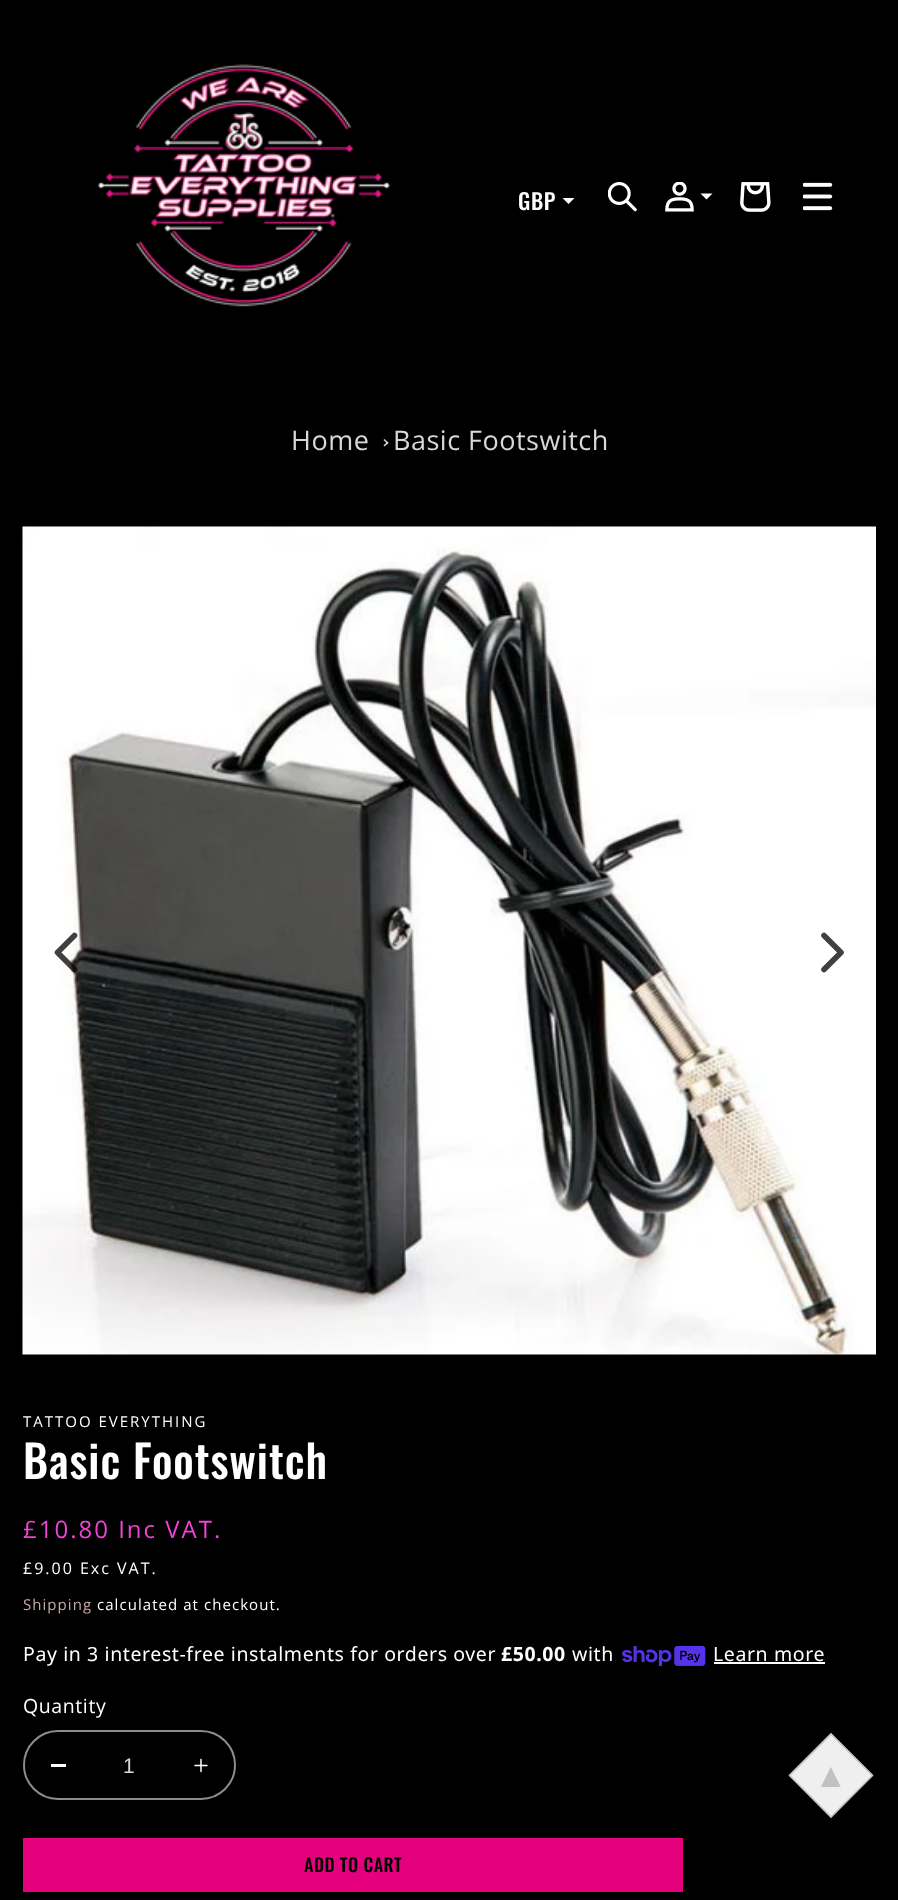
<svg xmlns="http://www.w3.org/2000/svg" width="898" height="1900">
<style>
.a{font:500 22px Oswald;letter-spacing:0.6px;fill:#fff}
.b{font:27px Open Sans;letter-spacing:0.5px;fill:#d8d8d8}
.c{font:15px Open Sans;letter-spacing:2px;fill:#fff}
.d{font:500 45px Oswald;letter-spacing:0.9px;fill:#fff}
.e{font:24px Open Sans;letter-spacing:2px;fill:#f042d7}
.f{font:16px Open Sans;letter-spacing:2px;fill:#fff}
.g{font:15px Open Sans;letter-spacing:1.05px;fill:#c7aaaa}
.h{font:15px Open Sans;letter-spacing:1.05px;fill:#fff}
.i{font:19.5px Noto Sans;letter-spacing:0.6px;fill:#fff}
.j{font:bold 19.5px Noto Sans;letter-spacing:0.6px;fill:#fff}
.k{font:19.5px Open Sans;letter-spacing:0.6px;fill:#fff}
.l{font:21px Liberation Sans;fill:#d8d8d8}
.m{font:500 18px Oswald;letter-spacing:0.5px;fill:#000}
.n{font:34px Liberation Sans;fill:#c1c1c1}
</style>
<rect width="100%" height="100%" fill="#000"/>
<image href="1.png" x="97" y="64" width="294" height="243"/>
<path fill="#fff" d="M562.5 198h12l-6 6z"/>
<image href="2.png" x="608" y="182" width="29" height="30"/>
<image href="3.png" x="665" y="182" width="29" height="30"/>
<path fill="#fff" d="M700.5 193.5h12l-6 6z"/>
<image href="4.png" x="740" y="182" width="31" height="30"/>
<image href="5.png" x="803" y="182" width="30" height="29"/>
<path fill="#d8d8d8" d="M384.5 439l4 4l-1 1l-4-4z"/>
<path fill="#d8d8d8" d="M387.5 441.5l1 1.5l-4 3.5l-1-1z"/>
<image href="6.png" x="22" y="526" width="854" height="829"/>
<path fill="none" stroke="#000000bf" stroke-width="5.6" stroke-linecap="round" stroke-linejoin="round" d="M74.5 935.5l-17 17l17 17"/>
<path fill="none" stroke="#404040" stroke-width="5.6" stroke-linecap="round" stroke-linejoin="round" d="M824 935.5l17 17l-17 17"/>
<image href="7.png" x="622" y="1646" width="84" height="21"/>
<path fill="#fff" d="M714 1662h111v2H714z"/>
<path fill="#fff" d="M51 1764h15v3H51z"/>
<image href="8.png" x="194" y="1758" width="14" height="15"/>
<rect fill="none" stroke="#8c8c8c" stroke-width="2" x="24" y="1731" width="211" height="68" rx="34"/>
<path fill="#e5007d" d="M23 1838h660v54H23z"/>
<path fill="#efefef" d="M831 1733l42 42l-42 43l-42-43z"/>
<path fill="none" stroke="#c1c1c1" stroke-width="1.5" d="M831 1734l41.5 41.5l-41.5 41.5l-41.5-41.5z"/>
<text class="a" x="518" y="210">GBP</text>
<text class="b" x="291" y="450">Home</text>
<text class="b" x="393" y="450">Basic Footswitch</text>
<text class="c" x="23" y="1427">TATTOO EVERYTHING</text>
<text class="d" x="23" y="1479">Basic Footswitch</text>
<text class="e" x="23" y="1538">£10.80 Inc VAT.</text>
<text class="f" x="23" y="1574">£9.00 Exc VAT.</text>
<text class="g" x="23" y="1610">Shipping</text>
<text class="h" x="97" y="1610">calculated at checkout.</text>
<text class="i" x="23" y="1661">Pay in 3 interest-free instalments for orders over</text>
<text class="j" x="501" y="1661">£50.00</text>
<text class="i" x="572" y="1661">with</text>
<text class="i" x="713" y="1661">Learn more</text>
<text class="k" x="23" y="1713">Quantity</text>
<text class="l" x="123" y="1773">1</text>
<text class="m" x="304" y="1872">ADD TO CART</text>
<text class="n" x="814" y="1787">▲</text>
</svg>
